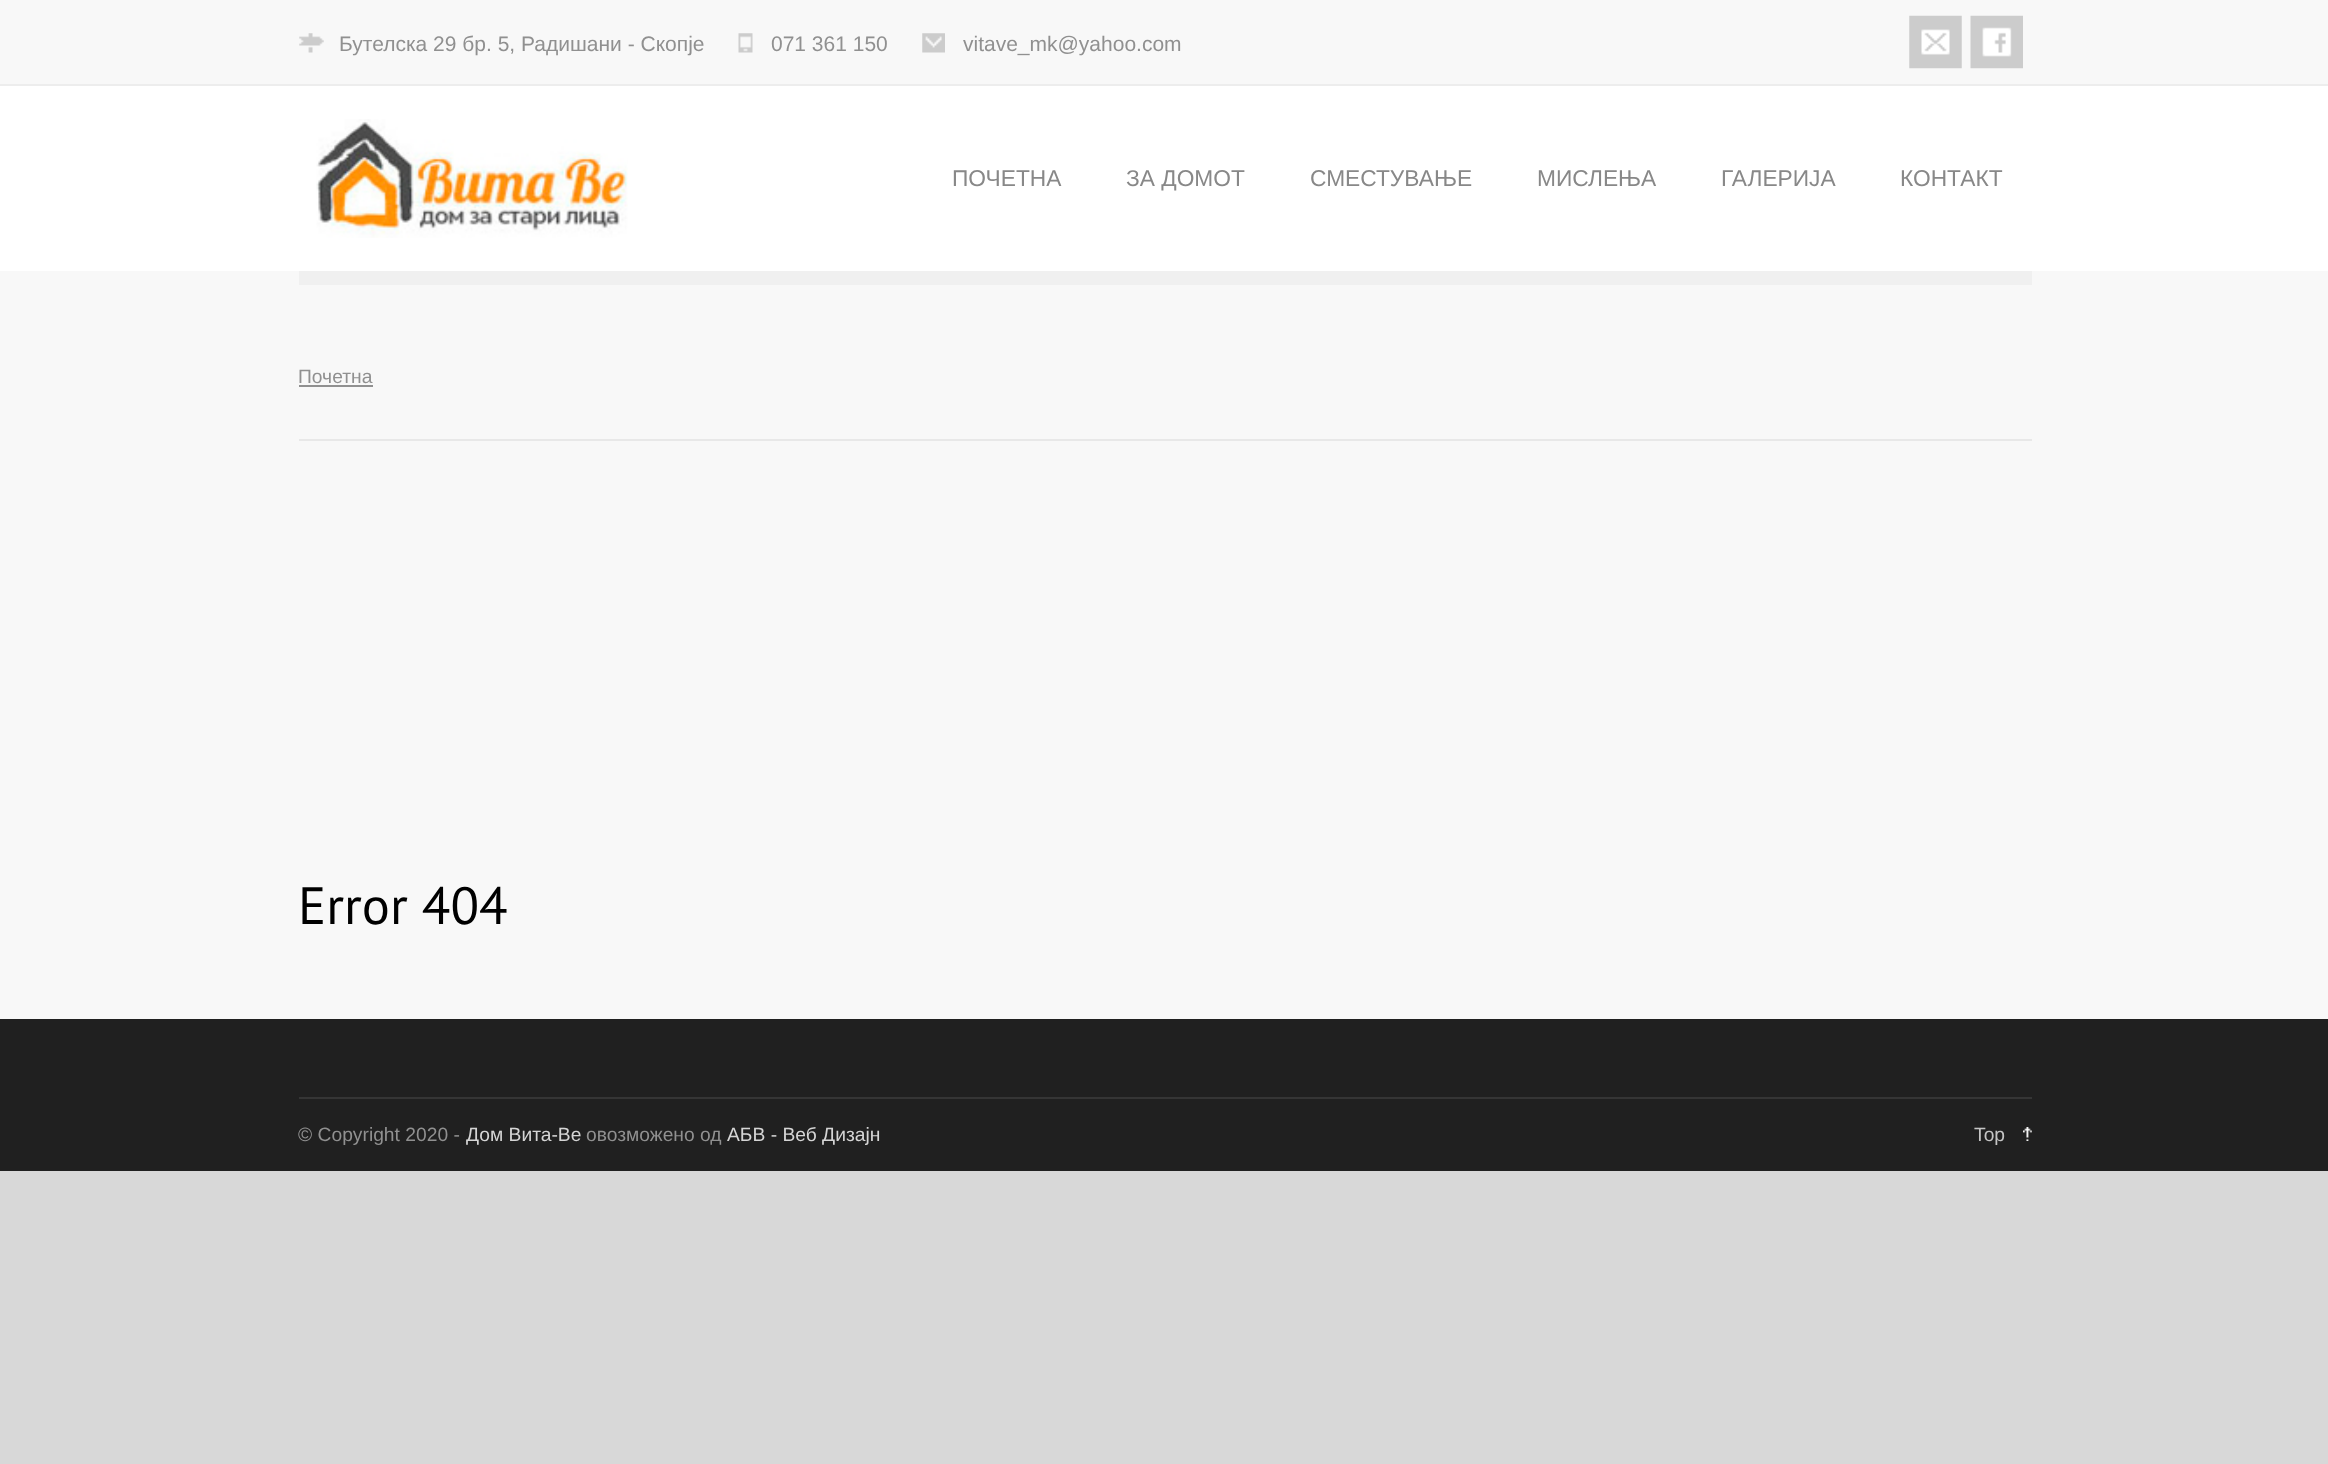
<svg xmlns="http://www.w3.org/2000/svg" width="2328" height="1464">
<style>
.a{font:21px Liberation Sans;fill:#909090}
.b{font:22.75px Liberation Sans;fill:#888}
.c{font:19.25px Liberation Sans;fill:#909090}
.d{font:52.5px PT Sans;fill:#000}
.e{font:19.25px Liberation Sans;fill:#d5d5d5}
.f{font:19.25px Liberation Sans;fill:#c5c5c5}
</style>
<rect width="100%" height="100%" fill="#d8d8d8"/>
<path fill="#f8f8f8" d="M0 0h2328v1019H0z"/>
<path fill="#ededed" d="M0 84h2328v2H0z"/>
<image href="1.png" x="299" y="33" width="25" height="20"/>
<image href="2.png" x="738" y="33" width="15" height="20"/>
<image href="3.png" x="922" y="33" width="23" height="20"/>
<image href="4.png" x="1909" y="15" width="53" height="54"/>
<image href="5.png" x="1970" y="15" width="53" height="54"/>
<path fill="#fff" d="M0 86h2328v185H0z"/>
<image href="6.png" x="316" y="119" width="312" height="119"/>
<path fill="#f0f0f0" d="M299 271h1733v14H299z"/>
<path fill="#e8e8e8" d="M299 439h1733v2H299z"/>
<path fill="#909090" d="M299 385h74v2H299z"/>
<path fill="#202020" d="M0 1019h2328v152H0z"/>
<path fill="#353535" d="M299 1097h1733v2H299z"/>
<image href="7.png" x="2023" y="1127" width="9" height="14"/>
<text class="a" x="339" y="51">Бутелска 29 бр. 5, Радишани - Скопје</text>
<text class="a" x="771" y="51">071 361 150</text>
<text class="a" x="963" y="51">vitave_mk@yahoo.com</text>
<text class="b" x="952" y="186">ПОЧЕТНА</text>
<text class="b" x="1126" y="186">ЗА ДОМОТ</text>
<text class="b" x="1310" y="186">СМЕСТУВАЊЕ</text>
<text class="b" x="1537" y="186">МИСЛЕЊА</text>
<text class="b" x="1721" y="186">ГАЛЕРИЈА</text>
<text class="b" x="1900" y="186">КОНТАКТ</text>
<text class="c" x="298" y="383">Почетна</text>
<text class="d" x="298" y="924">Error 404</text>
<text class="c" x="298" y="1141">© Copyright 2020 -</text>
<text class="e" x="466" y="1141">Дом Вита-Ве</text>
<text class="c" x="586" y="1141">овозможено од</text>
<text class="e" x="727" y="1141">АБВ - Веб Дизајн</text>
<text class="f" x="1974" y="1141">Top</text>
</svg>
